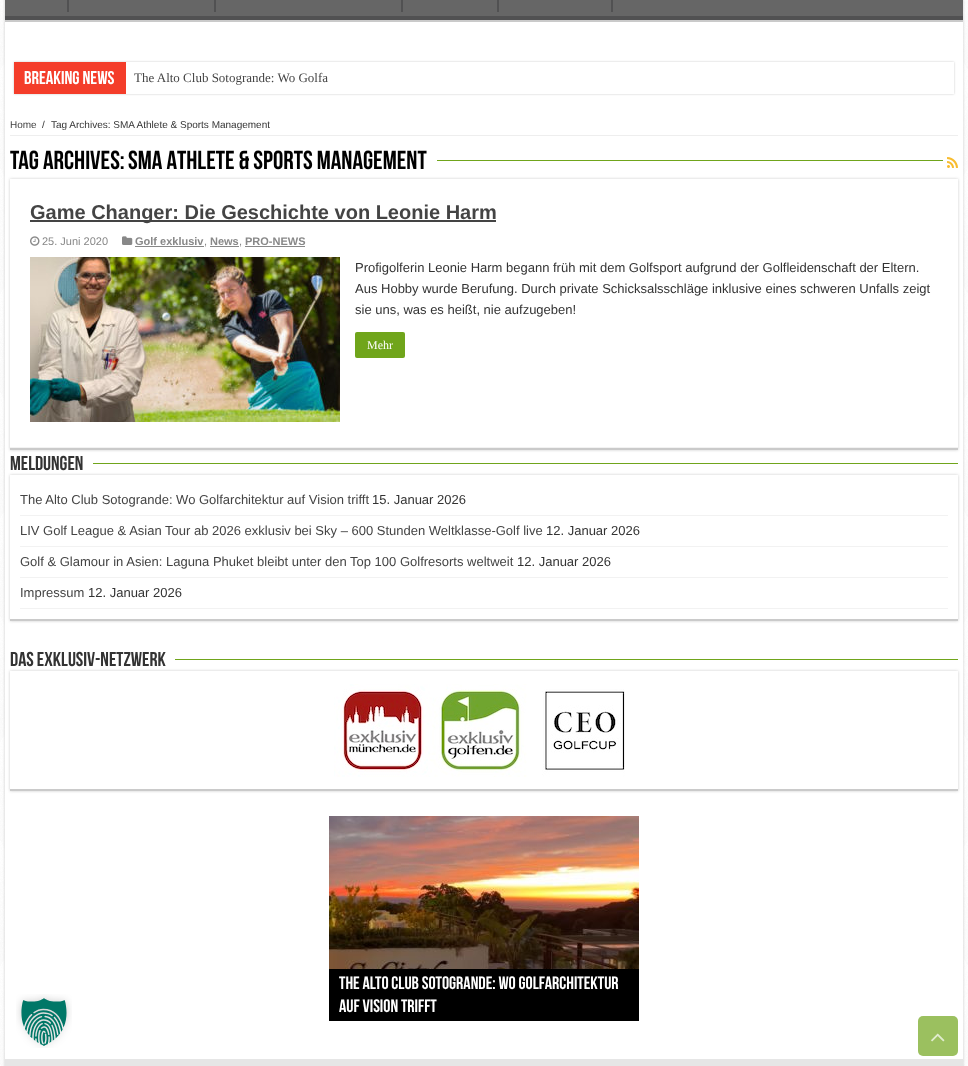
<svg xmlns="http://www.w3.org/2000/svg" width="968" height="1066">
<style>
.a{font:bold 18.5px Bebas Neue;fill:#fff}
.b{font:13px Liberation Serif;fill:#444}
.c{font:10px Liberation Sans;fill:#444}
.d{font:10px Liberation Sans;fill:#333}
.e{font:bold 26px Bebas Neue;fill:#000}
.f{font:bold 20px Liberation Sans;fill:#444}
.g{font:11px Liberation Sans;fill:#888}
.h{font:bold 11px Liberation Sans;fill:#888}
.i{font:13px Liberation Sans;fill:#333}
.j{font:12px Liberation Serif;fill:#fff}
.k{font:bold 20px Bebas Neue;fill:#333}
.l{font:13px Liberation Sans;fill:#444}
.m{font:bold 18px Bebas Neue;fill:#fff}
</style>
<defs>
<clipPath id="clip1"><path d="M5 0h958v20H5z"/></clipPath>
<clipPath id="clip2"><path d="M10 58h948v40h-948zm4 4h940v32h-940z" clip-rule="evenodd"/></clipPath>
<clipPath id="clip3"><path d="M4 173h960v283h-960zm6 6h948v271h-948z" clip-rule="evenodd"/></clipPath>
<clipPath id="clip4"><path d="M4 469h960v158h-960zm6 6h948v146h-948z" clip-rule="evenodd"/></clipPath>
<clipPath id="clip5"><path d="M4 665h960v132h-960zm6 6h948v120h-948z" clip-rule="evenodd"/></clipPath>
<clipPath id="clip6"><path d="M10 146h948v33H10z"/></clipPath>
</defs>
<rect width="100%" height="100%" fill="#fff"/>
<image href="1.png" x="0" y="0" width="968" height="1066"/>
<path fill="#cacaca" filter="blur(1.5px)" d="M5 -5h958v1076H5z"/>
<path fill="#fff" d="M5 22h958v1037H5z"/>
<path fill="#666" d="M5 0h958v16H5z"/>
<g clip-path="url(#clip1)">
<path fill="#515152" fill-rule="evenodd" d="M-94-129h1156v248h-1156zm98 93h958c1 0 1 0 1 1v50c0 1 0 1-1 1h-958c-1 0-1 0-1-1v-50c0-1 0-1 1-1z"/>
</g>
<path fill="#cacaca" d="M5 20h958v2H5z"/>
<path fill="#515152" d="M67 0h2v12H67z"/>
<path fill="#515152" d="M214 0h2v12H214z"/>
<path fill="#515152" d="M401 0h2v12H401z"/>
<path fill="#515152" d="M497 0h2v12H497z"/>
<path fill="#515152" d="M611 0h2v12H611z"/>
<g clip-path="url(#clip2)">
<path fill="#cacaca" filter="blur(1px)" d="M14 62h940v32H14z"/>
</g>
<path fill="#f43d2a" d="M14 62h112v32H14z"/>
<path fill="#eee" d="M10 135h948v1H10z"/>
<path fill="#70a51b" d="M437 160h506v1H437z"/>
<image href="2.png" x="947" y="157" width="11" height="11"/>
<g clip-path="url(#clip3)">
<path fill="#cacaca" filter="blur(1.5px)" d="M10 179h948v271H10z"/>
</g>
<path fill="#cacaca" d="M10 448h948v2H10z"/>
<path fill="#f2f2f2" d="M10 447h948v1H10z"/>
<path fill="#444" d="M30 220h466v2H30z"/>
<image href="3.png" x="30" y="236" width="10" height="10"/>
<image href="4.png" x="122" y="236" width="11" height="9"/>
<path fill="#888" d="M135 246h69v1H135z"/>
<path fill="#888" d="M210 246h29v1H210z"/>
<path fill="#888" d="M245 246h60v1H245z"/>
<image href="5.png" x="30" y="257" width="310" height="165"/>
<rect fill="#70a51b" x="355" y="332" width="50" height="26" rx="2"/>
<path fill="#70a51b" d="M93 463h865v1H93z"/>
<g clip-path="url(#clip4)">
<path fill="#cacaca" filter="blur(1.5px)" d="M10 475h948v146H10z"/>
</g>
<path fill="#cacaca" d="M10 619h948v2H10z"/>
<path fill="#f2f2f2" d="M20 515h928v1H20z"/>
<path fill="#f2f2f2" d="M20 546h928v1H20z"/>
<path fill="#f2f2f2" d="M20 577h928v1H20z"/>
<path fill="#f2f2f2" d="M20 608h928v1H20z"/>
<path fill="#70a51b" d="M175 659h783v1H175z"/>
<g clip-path="url(#clip5)">
<path fill="#cacaca" filter="blur(1.5px)" d="M10 671h948v120H10z"/>
</g>
<path fill="#cacaca" d="M10 789h948v2H10z"/>
<image href="6.png" x="334" y="684" width="291" height="93"/>
<image href="7.png" x="329" y="816" width="310" height="153"/>
<path fill="#000" d="M329 969h310v52H329z"/>
<path fill="#e6e6e6" d="M5 1059h958v7H5z"/>
<image href="8.png" x="16" y="994" width="56" height="54"/>
<rect fill="#9bc05f" x="918" y="1016" width="40" height="40" rx="5"/>
<image href="9.png" x="931" y="1033" width="14" height="9"/>
<text class="a" x="24" y="84">Breaking News</text>
<text class="b" x="134" y="82">The Alto Club Sotogrande: Wo Golfa</text>
<text class="c" x="10" y="128">Home</text>
<text class="d" x="42" y="128">/</text>
<text class="d" x="51" y="128">Tag Archives: SMA Athlete &amp; Sports Management</text>
<g clip-path="url(#clip6)">
<text class="e" x="10" y="169">Tag Archives:</text>
</g>
<text class="e" x="128" y="169">SMA Athlete &amp; Sports Management</text>
<text class="f" x="30" y="219">Game Changer: Die Geschichte von Leonie Harm</text>
<text class="g" x="42" y="245">25. Juni 2020</text>
<text class="h" x="135" y="245">Golf exklusiv</text>
<text class="g" x="204" y="245">,</text>
<text class="h" x="210" y="245">News</text>
<text class="g" x="239" y="245">,</text>
<text class="h" x="245" y="245">PRO-NEWS</text>
<text class="i" x="355" y="272">Profigolferin Leonie Harm begann früh mit dem Golfsport aufgrund der Golfleidenschaft der Eltern.</text>
<text class="i" x="355" y="293">Aus Hobby wurde Berufung. Durch private Schicksalsschläge inklusive eines schweren Unfalls zeigt</text>
<text class="i" x="355" y="314">sie uns, was es heißt, nie aufzugeben!</text>
<text class="j" x="367" y="349">Mehr</text>
<text class="k" x="10" y="470">Meldungen</text>
<text class="l" x="20" y="504">The Alto Club Sotogrande: Wo Golfarchitektur auf Vision trifft</text>
<text class="i" x="372" y="504">15. Januar 2026</text>
<text class="l" x="20" y="535">LIV Golf League &amp; Asian Tour ab 2026 exklusiv bei Sky – 600 Stunden Weltklasse-Golf live</text>
<text class="i" x="546" y="535">12. Januar 2026</text>
<text class="l" x="20" y="566">Golf &amp; Glamour in Asien: Laguna Phuket bleibt unter den Top 100 Golfresorts weltweit</text>
<text class="i" x="517" y="566">12. Januar 2026</text>
<text class="l" x="20" y="597">Impressum</text>
<text class="i" x="88" y="597">12. Januar 2026</text>
<text class="k" x="10" y="666">Das Exklusiv-Netzwerk</text>
<text class="m" x="339" y="989">The Alto Club Sotogrande: Wo Golfarchitektur</text>
<text class="m" x="339" y="1012">auf Vision trifft</text>
</svg>
